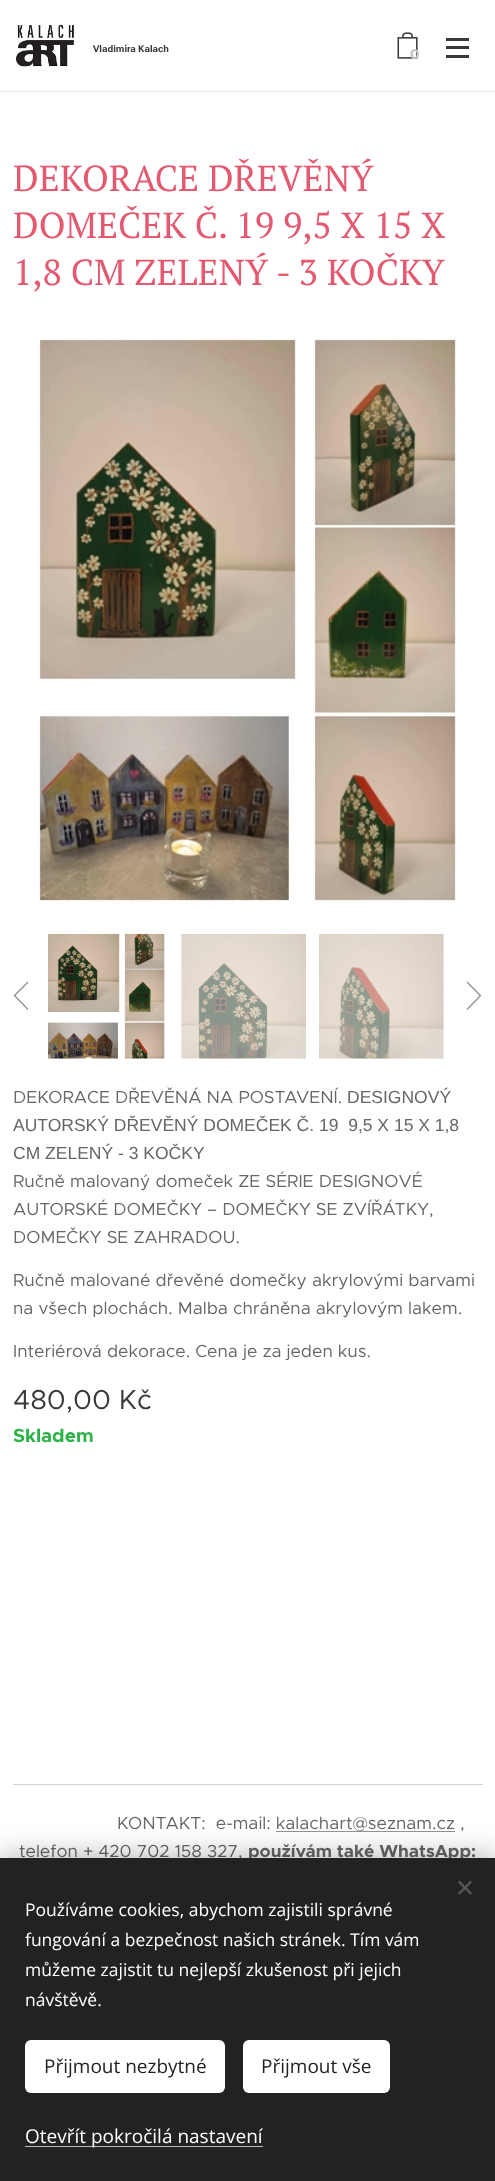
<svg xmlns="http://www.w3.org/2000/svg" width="495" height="2181">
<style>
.a{font:bold 9.5px Roboto Flex;fill:#393939}
.b{font:bold 14px Montserrat;fill:#c4c4c4}
.c{font:36.25px PT Serif;fill:#e45970}
.d{font:17.5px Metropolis;fill:#666}
.e{font:17.5px Liberation Sans;fill:#666}
.f{font:27.5px Metropolis;fill:#393939}
.g{font:bold 19px Metropolis;fill:#2db247}
.h{font:bold 17.5px Metropolis;fill:#666}
.i{font:17.5px Open Sans;fill:#fff}
.j{font:19px Open Sans;fill:#222}
.k{font:19px Open Sans;fill:#fff}
</style>
<rect width="100%" height="100%" fill="#fff"/>
<image href="1.png" x="16" y="24" width="58" height="43"/>
<image href="2.png" x="397" y="32" width="21" height="27"/>
<path fill="#393939" d="M446 46h23v3H446z"/>
<path fill="#393939" d="M446 38h23v3H446z"/>
<path fill="#393939" d="M446 55h23v3H446z"/>
<path fill="#e8e8e8" d="M0 91h495v1H0z"/>
<image href="3.png" x="39" y="339" width="417" height="562"/>
<path fill="#949494" d="M27.5 1010l1-1l-13-13.5l13-13l-1-1l-14 14z"/>
<image href="4.png" x="48" y="933" width="117" height="126"/>
<image href="5.png" x="181" y="934" width="126" height="125"/>
<image href="6.png" x="319" y="934" width="125" height="125"/>
<path fill="#949494" d="M467.5 981.5l-1 1l13 13l-13 13.5l1 1l14-14.5z"/>
<path fill="#d4d4d4" d="M13 1784h470v1H13z"/>
<text class="a" x="93" y="52">Vladimíra Kalach</text>
<text class="b" x="410" y="59">0</text>
<text class="c" x="13" y="191">DEKORACE DŘEVĚNÝ</text>
<text class="c" x="13" y="238">DOMEČEK Č. 19 9,5 X 15 X</text>
<text class="c" x="13" y="285">1,8 CM ZELENÝ - 3 KOČKY</text>
<text class="d" x="13" y="1103">DEKORACE DŘEVĚNÁ NA POSTAVENÍ.</text>
<text class="e" x="347" y="1103">DESIGNOVÝ</text>
<text class="e" xml:space="preserve" x="13" y="1131">AUTORSKÝ DŘEVĚNÝ DOMEČEK Č. 19  9,5 X 15 X 1,8</text>
<text class="e" x="13" y="1159">CM ZELENÝ - 3 KOČKY</text>
<text class="d" x="13" y="1187">Ručně malovaný domeček ZE SÉRIE DESIGNOVÉ</text>
<text class="d" x="13" y="1215">AUTORSKÉ DOMEČKY – DOMEČKY SE ZVÍŘÁTKY,</text>
<text class="d" x="13" y="1243">DOMEČKY SE ZAHRADOU.</text>
<text class="d" x="13" y="1286">Ručně malované dřevěné domečky akrylovými barvami</text>
<text class="d" x="13" y="1314">na všech plochách. Malba chráněna akrylovým lakem.</text>
<text class="d" x="13" y="1357">Interiérová dekorace. Cena je za jeden kus.</text>
<text class="f" x="13" y="1409">480,00 Kč</text>
<text class="g" x="13" y="1442">Skladem</text>
<text class="d" xml:space="preserve" x="117" y="1829">KONTAKT:  e-mail: kalachart@seznam.cz ,</text>
<path fill="#949494" d="M276 1831h179v1H276z"/>
<text class="d" x="19" y="1857">telefon + 420 702 158 327,</text>
<text class="h" x="248" y="1857">používám také WhatsApp:</text>
<path fill="#00000054" filter="blur(15.5px)" d="M0 1858h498v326H0z"/>
<path fill="#222" d="M0 1858h495v323H0z"/>
<path fill="#555" d="M458 1893l12.5-12.5l1.5 2l-12.5 12.5z"/>
<path fill="#555" d="M459.5 1880.5l12.5 12.5l-1.5 2l-12.5-12.5z"/>
<text class="i" x="25" y="1916">Používáme cookies, abychom zajistili správné</text>
<text class="i" x="25" y="1946">fungování a bezpečnost našich stránek. Tím vám</text>
<text class="i" x="25" y="1976">můžeme zajistit tu nejlepší zkušenost při jejich</text>
<text class="i" x="25" y="2006">návštěvě.</text>
<rect fill="#fff" x="25" y="2040" width="200" height="53" rx="6"/>
<text class="j" x="44" y="2073">Přijmout nezbytné</text>
<rect fill="#fff" x="243" y="2040" width="147" height="53" rx="6"/>
<text class="j" x="261" y="2073">Přijmout vše</text>
<path fill="#bdbdbd" d="M25 2146h238v1H25z"/>
<text class="k" x="25" y="2143">Otevřít pokročilá nastavení</text>
</svg>
